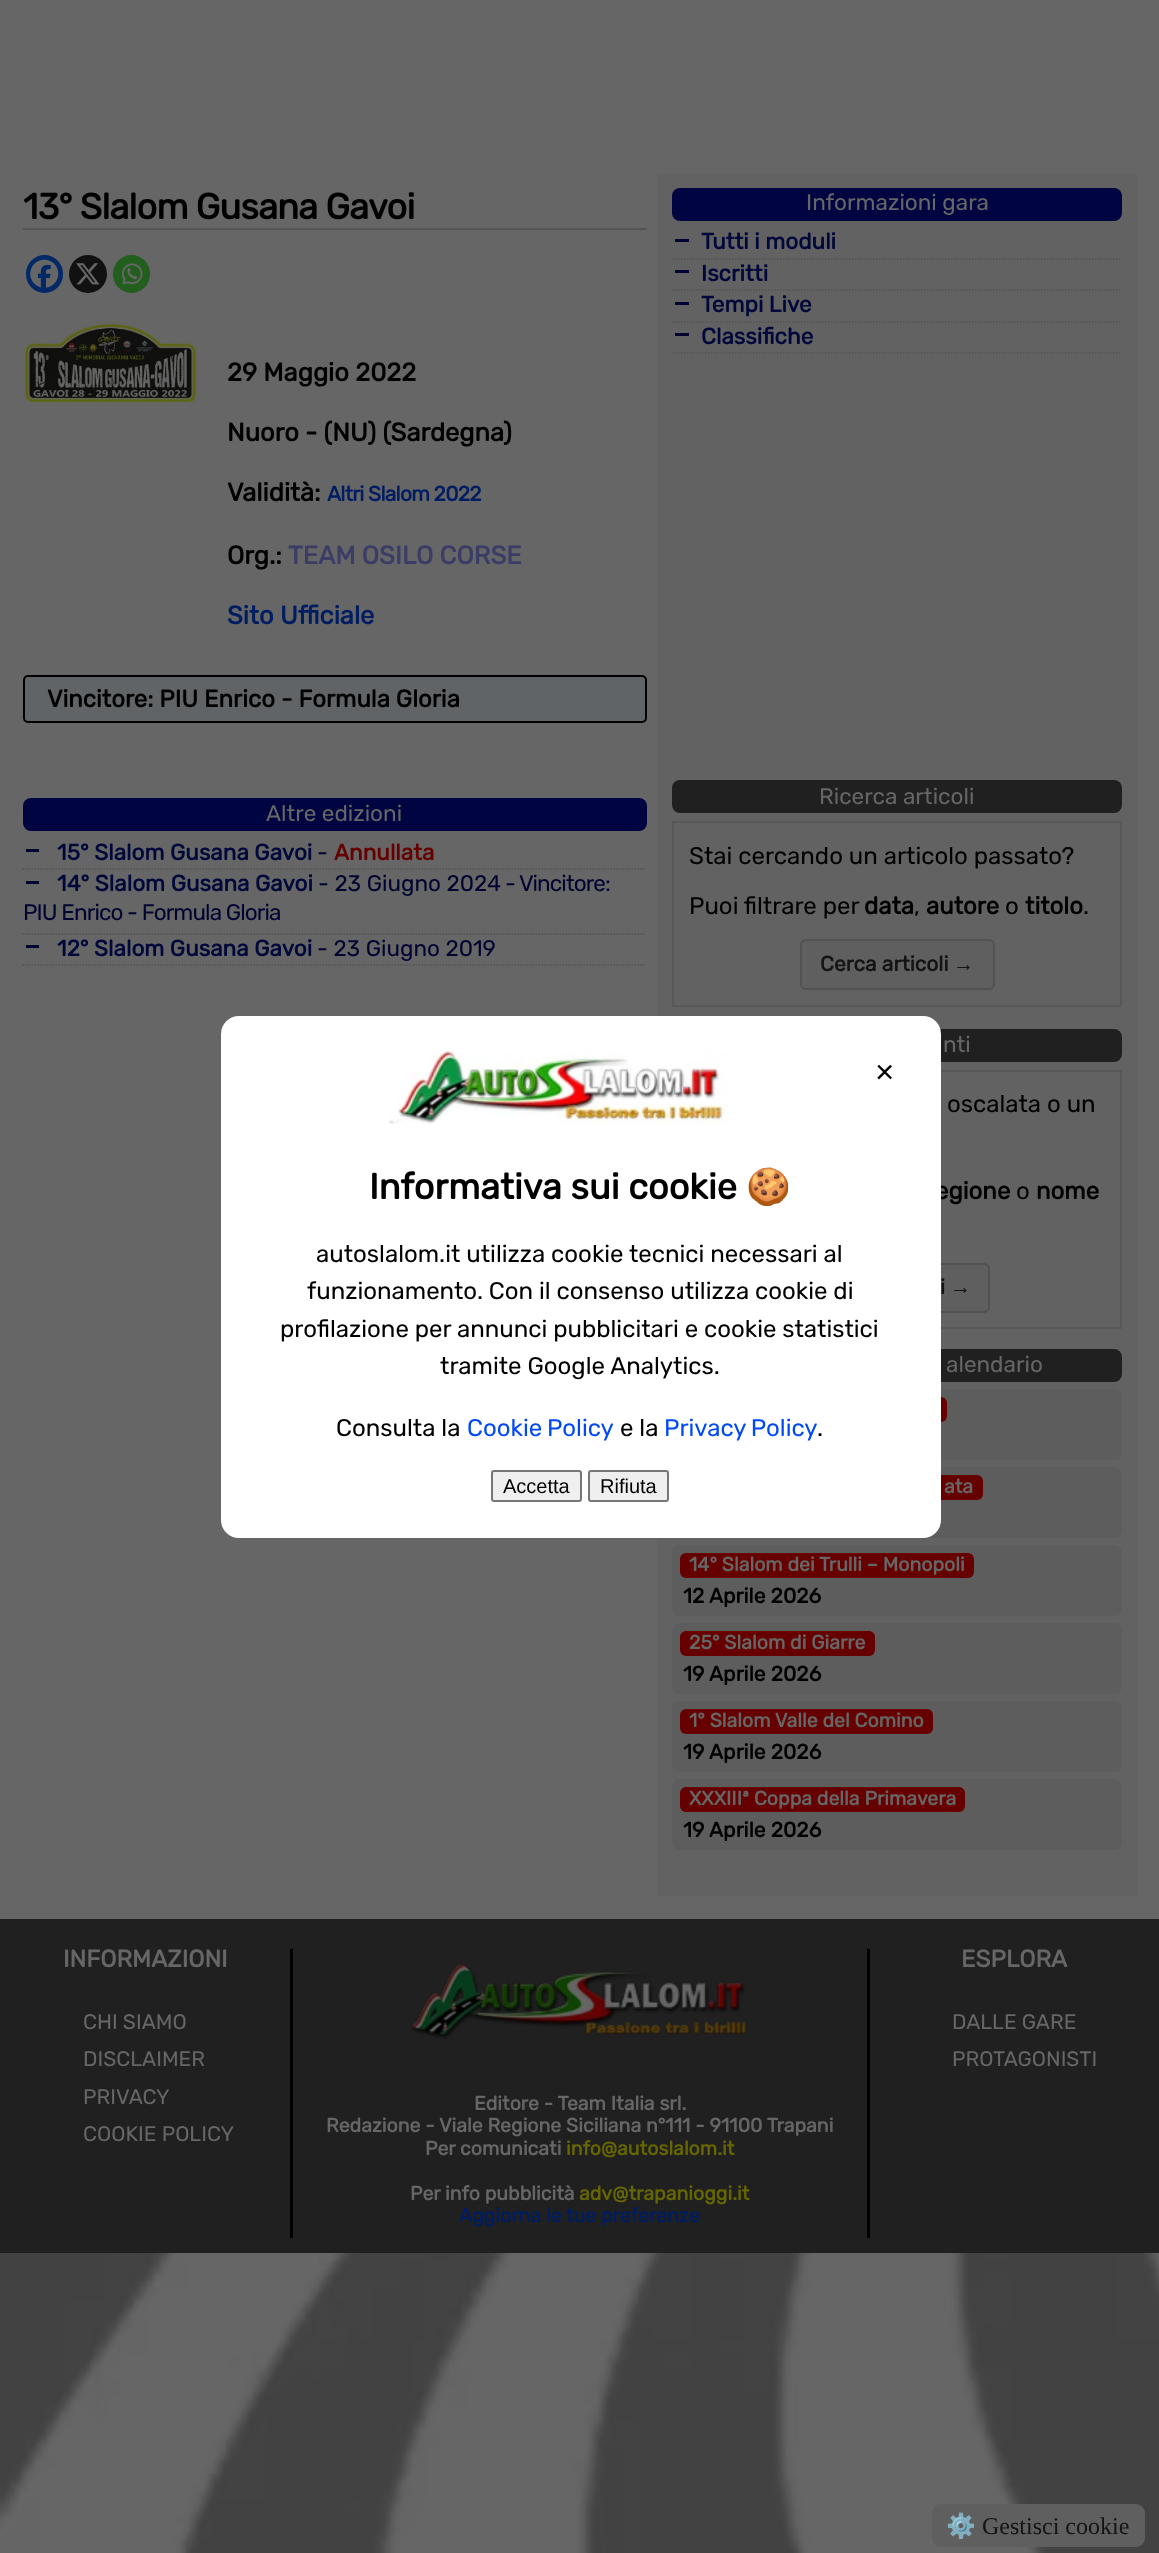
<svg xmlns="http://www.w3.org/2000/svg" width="1159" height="2553">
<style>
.a{font:bold 36px Rubik;letter-spacing:-0.75px;fill:#000}
.b{font:bold 25.5px Rubik;fill:#000}
.c{font:bold 21px Rubik;letter-spacing:-0.75px;fill:#001d62}
.d{font:bold 25.5px Rubik;fill:#3b3d66}
.e{font:bold 25.5px Rubik;fill:#001d62}
.f{font:bold 24px Rubik;fill:#000}
.g{font:22.5px Rubik;fill:#666}
.h{font:bold 22.5px Rubik;fill:#00073a}
.i{font:24px Rubik;fill:#000}
.j{font:bold 21px Rubik;fill:#141414}
.k{font:bold 21px Liberation Serif;fill:#141414}
.l{font:bold 19.5px Rubik;fill:#666}
.m{font:bold 21px Rubik;fill:#000}
.n{font:bold 22.5px Rubik;fill:#600}
.o{font:22.5px Rubik;fill:#000330}
.p{font:22.5px Rubik;letter-spacing:-0.9px;fill:#000330}
.q{font:33px Liberation Sans;fill:#000}
.r{font:bold 36px Rubik;fill:#000}
.s{font:bold 36px Noto Color Emoji;fill:#000}
.t{font:24px Rubik;fill:#0049f5}
.u{font:20px Liberation Sans;fill:#000}
.v{font:bold 24px Rubik;fill:#666}
.w{font:21px Rubik;fill:#666}
.x{font:bold 19.5px Rubik;fill:#660}
.y{font:bold 19.5px Rubik;fill:#001d62}
.z{font:24px Noto Color Emoji;fill:#141414}
.a1{font:24px Liberation Serif;fill:#141414}
</style>
<rect width="100%" height="100%" fill="#fff"/>
<image href="1.png" x="0" y="2253" width="1159" height="300"/>
<path fill="#666" d="M0 0h1159v1919H0z"/>
<path fill="#555" d="M23 228h624v2H23z"/>
<rect fill="#032866" x="26" y="255" width="37" height="38" rx="18.5"/>
<image href="2.png" x="30" y="259" width="29" height="29"/>
<circle fill="#111" cx="88" cy="274" r="19"/>
<image href="3.png" x="76" y="263" width="24" height="22"/>
<rect fill="#225e1e" x="113" y="255" width="37" height="38" rx="18.5"/>
<image href="4.png" x="121" y="263" width="22" height="22"/>
<image href="5.png" x="22" y="319" width="176" height="85"/>
<rect fill="#616466" stroke="#000" stroke-width="2" x="24" y="676" width="622" height="46" rx="4"/>
<path fill="#636262" d="M657 173h480v1723H657z"/>
<rect fill="#000441" x="672" y="188" width="450" height="33" rx="8"/>
<path fill="none" stroke="#535353" stroke-width="1.5" stroke-dasharray="1.5 1.5" d="M672 259h450"/>
<path fill="#000330" d="M675 239h14v3H675z"/>
<path fill="none" stroke="#535353" stroke-width="1.5" stroke-dasharray="1.5 1.5" d="M672 290h450"/>
<path fill="#000330" d="M675 270h14v3H675z"/>
<path fill="none" stroke="#535353" stroke-width="1.5" stroke-dasharray="1.5 1.5" d="M672 322h450"/>
<path fill="#000330" d="M675 302h14v3H675z"/>
<path fill="none" stroke="#535353" stroke-width="1.5" stroke-dasharray="1.5 1.5" d="M672 353h450"/>
<path fill="#000330" d="M675 333h14v3H675z"/>
<rect fill="#202020" x="672" y="780" width="450" height="33" rx="8"/>
<path fill="none" stroke="#585858" stroke-width="2" d="M673 822h448v184H673z"/>
<rect fill="#5f5f5f" stroke="#525252" stroke-width="2" x="801" y="940" width="193" height="49" rx="5"/>
<rect fill="#202020" x="672" y="1029" width="450" height="33" rx="8"/>
<path fill="none" stroke="#585858" stroke-width="2" d="M673 1071h448v257H673z"/>
<rect fill="#5f5f5f" stroke="#525252" stroke-width="2" x="805" y="1264" width="184" height="48" rx="5"/>
<rect fill="#202020" x="672" y="1349" width="450" height="33" rx="8"/>
<rect fill="#5e5d5d" x="672" y="1389" width="450" height="71" rx="8"/>
<rect fill="#600" x="680" y="1397" width="267" height="25" rx="6"/>
<rect fill="#5e5d5d" x="672" y="1467" width="450" height="71" rx="8"/>
<rect fill="#600" x="680" y="1475" width="303" height="25" rx="6"/>
<rect fill="#5e5d5d" x="672" y="1545" width="450" height="71" rx="8"/>
<rect fill="#600" x="680" y="1553" width="294" height="25" rx="6"/>
<rect fill="#5e5d5d" x="672" y="1623" width="450" height="71" rx="8"/>
<rect fill="#600" x="680" y="1631" width="195" height="25" rx="6"/>
<rect fill="#5e5d5d" x="672" y="1701" width="450" height="71" rx="8"/>
<rect fill="#600" x="680" y="1709" width="253" height="25" rx="6"/>
<rect fill="#5e5d5d" x="672" y="1779" width="450" height="71" rx="8"/>
<rect fill="#600" x="680" y="1787" width="285" height="25" rx="6"/>
<rect fill="#000441" x="23" y="798" width="624" height="33" rx="8"/>
<path fill="none" stroke="#535353" stroke-width="1.5" stroke-dasharray="1.5 1.5" d="M22.5 869h624"/>
<path fill="#000330" d="M26 849h13v3H26z"/>
<path fill="none" stroke="#535353" stroke-width="1.5" stroke-dasharray="1.5 1.5" d="M22.5 934h624"/>
<path fill="#000330" d="M26 881h13v3H26z"/>
<path fill="none" stroke="#535353" stroke-width="1.5" stroke-dasharray="1.5 1.5" d="M22.5 965h624"/>
<path fill="#000330" d="M26 945h13v3H26z"/>
<path fill="#202020" d="M0 1919h1159v334H0z"/>
<path fill="#000" d="M867 1949h3v289H867z"/>
<path fill="#000" d="M290 1949h3v289H290z"/>
<image href="7.png" x="401" y="1963" width="346" height="77"/>
<rect fill="#5f5f5f" x="932" y="2504" width="213" height="43" rx="9"/>
<text class="a" x="23" y="219">13° Slalom Gusana Gavoi</text>
<text class="b" x="227" y="381">29 Maggio 2022</text>
<text class="b" x="227" y="441">Nuoro - (NU) (Sardegna)</text>
<text class="b" x="227" y="501">Validità:</text>
<text class="c" x="327" y="501">Altri Slalom 2022</text>
<text class="b" x="227" y="564">Org.:</text>
<text class="d" x="288" y="564">TEAM OSILO CORSE</text>
<text class="e" x="227" y="624">Sito Ufficiale</text>
<text class="f" x="47" y="707">Vincitore: PIU Enrico - Formula Gloria</text>
<text class="g" x="806" y="210">Informazioni gara</text>
<text class="h" x="701" y="249">Tutti i moduli</text>
<text class="h" x="701" y="281">Iscritti</text>
<text class="h" x="701" y="312">Tempi Live</text>
<text class="h" x="701" y="344">Classifiche</text>
<text class="g" x="819" y="804">Ricerca articoli</text>
<text class="i" x="689" y="864">Stai cercando un articolo passato?</text>
<text class="i" x="689" y="914">Puoi filtrare per</text>
<text class="f" x="864" y="914">data</text>
<text class="i" x="914" y="914">,</text>
<text class="f" x="926" y="914">autore</text>
<text class="i" x="1005" y="914">o</text>
<text class="f" x="1025" y="914">titolo</text>
<text class="i" x="1083" y="914">.</text>
<text class="j" x="820" y="971">Cerca articoli</text>
<text class="k" x="953" y="971">→</text>
<text class="g" x="943" y="1052">nti</text>
<text class="i" x="947" y="1112">oscalata o un</text>
<text class="f" x="935" y="1199">egione</text>
<text class="i" x="1016" y="1199">o</text>
<text class="f" x="1036" y="1199">nome</text>
<text class="j" x="940" y="1294">i</text>
<text class="k" x="950" y="1294">→</text>
<text class="g" x="946" y="1372">alendario</text>
<text class="l" x="944" y="1493">ata</text>
<text class="l" x="689" y="1571">14° Slalom dei Trulli – Monopoli</text>
<text class="m" x="683" y="1603">12 Aprile 2026</text>
<text class="l" x="689" y="1649">25° Slalom di Giarre</text>
<text class="m" x="683" y="1681">19 Aprile 2026</text>
<text class="l" x="689" y="1727">1° Slalom Valle del Comino</text>
<text class="m" x="683" y="1759">19 Aprile 2026</text>
<text class="l" x="689" y="1805">XXXIIIª Coppa della Primavera</text>
<text class="m" x="683" y="1837">19 Aprile 2026</text>
<text class="g" x="266" y="821">Altre edizioni</text>
<text class="h" x="57" y="860">15° Slalom Gusana Gavoi</text>
<text class="n" x="334" y="860">Annullata</text>
<text class="o" x="317" y="860">-</text>
<text class="h" x="57" y="891">14° Slalom Gusana Gavoi</text>
<text class="o" x="318" y="891">- 23 Giugno 2024</text>
<text class="p" x="505" y="891">- Vincitore:</text>
<text class="p" x="23" y="920">PIU Enrico - Formula Gloria</text>
<text class="h" x="57" y="956">12° Slalom Gusana Gavoi</text>
<text class="o" x="317" y="956">- 23 Giugno 2019</text>
<rect fill="#fff" x="221" y="1016" width="720" height="522" rx="18"/>
<image href="6.png" x="388" y="1051" width="339" height="73"/>
<text class="q" x="875" y="1083">×</text>
<text class="r" x="369" y="1199">Informativa sui cookie</text>
<text class="s" x="746" y="1199">🍪</text>
<text class="i" x="316" y="1262">autoslalom.it utilizza cookie tecnici necessari al</text>
<text class="i" x="307" y="1299">funzionamento. Con il consenso utilizza cookie di</text>
<text class="i" x="280" y="1337">profilazione per annunci pubblicitari e cookie statistici</text>
<text class="i" x="440" y="1374">tramite Google Analytics.</text>
<text class="i" x="336" y="1436">Consulta la</text>
<text class="t" x="467" y="1436" word-spacing="-1">Cookie Policy</text>
<text class="i" x="620" y="1436">e la</text>
<text class="t" x="664" y="1436" word-spacing="-1">Privacy Policy</text>
<text class="i" x="817" y="1436">.</text>
<rect fill="#efefef" stroke="#767676" stroke-width="2" x="492" y="1471" width="89" height="30" rx="2"/>
<text class="u" x="503" y="1493">Accetta</text>
<rect fill="#efefef" stroke="#767676" stroke-width="2" x="589" y="1471" width="79" height="30" rx="2"/>
<text class="u" x="600" y="1493">Rifiuta</text>
<text class="v" x="63" y="1967">INFORMAZIONI</text>
<text class="w" x="83" y="2029">CHI SIAMO</text>
<text class="w" x="83" y="2066">DISCLAIMER</text>
<text class="w" x="83" y="2104">PRIVACY</text>
<text class="w" x="83" y="2141">COOKIE POLICY</text>
<text class="v" x="961" y="1967">ESPLORA</text>
<text class="w" x="952" y="2029">DALLE GARE</text>
<text class="w" x="952" y="2066">PROTAGONISTI</text>
<text class="l" x="474" y="2110">Editore - Team Italia srl.</text>
<text class="l" x="326" y="2132">Redazione - Viale Regione Siciliana n°111 - 91100 Trapani</text>
<text class="l" x="425" y="2155">Per comunicati</text>
<text class="x" x="566" y="2155">info@autoslalom.it</text>
<text class="l" x="410" y="2200">Per info pubblicità</text>
<text class="x" x="579" y="2200">adv@trapanioggi.it</text>
<text class="y" x="459" y="2222">Aggiorna le tue preferenze</text>
<text class="z" x="946" y="2534">⚙️</text>
<text class="a1" x="982" y="2534">Gestisci cookie</text>
</svg>
